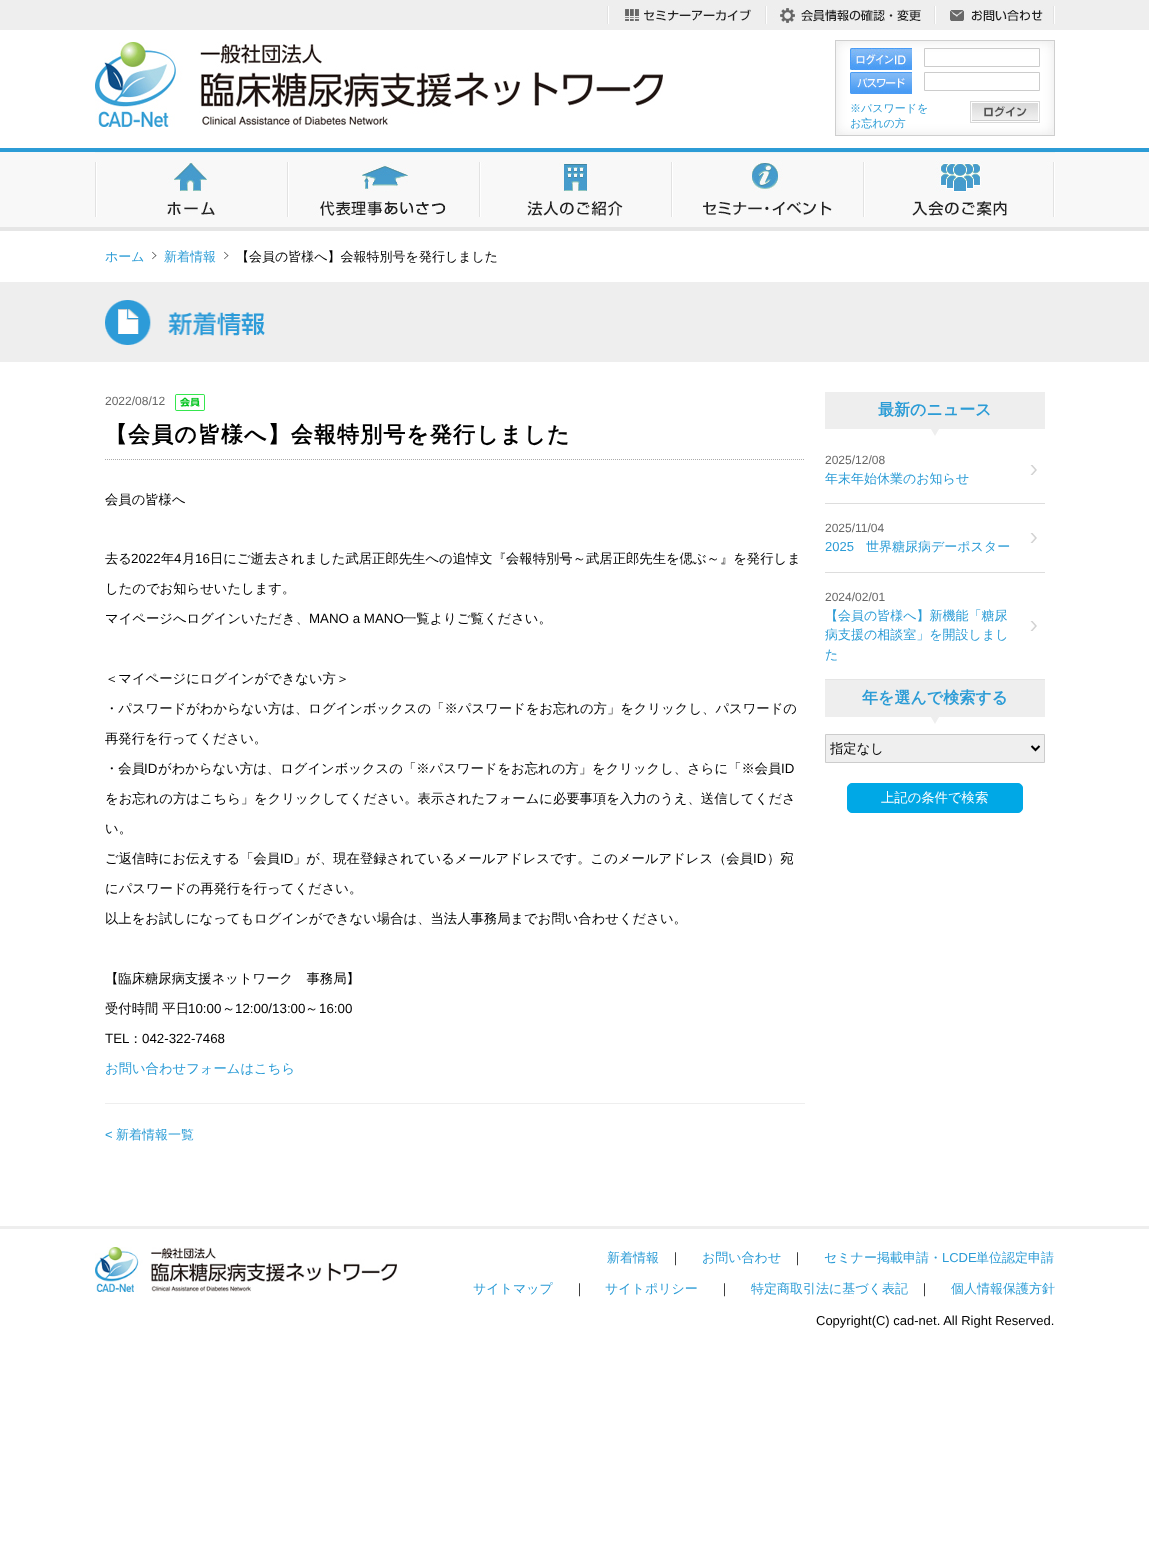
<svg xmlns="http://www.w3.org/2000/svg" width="1149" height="1560">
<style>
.a{font:500 11px WenQuanYi Zen Hei;fill:#2c9cd6}
.b{font:500 13px WenQuanYi Zen Hei;fill:#2c9cd6}
.c{font:500 13px WenQuanYi Zen Hei;fill:#000}
.d{font:12px Liberation Sans;fill:#666}
.e{font:bold 22px WenQuanYi Zen Hei;letter-spacing:1.1px;fill:#000}
.f{font:500 13.33px WenQuanYi Zen Hei;fill:#000}
.g{font:13.33px Liberation Sans;fill:#000}
.h{font:500 13.33px WenQuanYi Zen Hei;fill:#2c9cd6}
.i{font:13px Liberation Sans;fill:#2c9cd6}
.j{font:bold 16px WenQuanYi Zen Hei;fill:#2c9cd6}
.k{font:500 13.33px WenQuanYi Zen Hei;fill:#fff}
.l{font:13px Liberation Sans;fill:#000}
</style>
<defs>
<clipPath id="clip1"><path d="M830 740h198v17H830z"/></clipPath>
</defs>
<rect width="100%" height="100%" fill="#fff"/>
<path fill="#eee" d="M0 0h1149v30H0z"/>
<image href="1.png" x="95" y="42" width="568" height="85"/>
<image href="2.png" x="607" y="6" width="144" height="18"/>
<image href="3.png" x="765" y="6" width="156" height="18"/>
<image href="4.png" x="934" y="6" width="121" height="18"/>
<image href="5.png" x="835" y="40" width="220" height="96"/>
<image href="6.png" x="850" y="48" width="62" height="22"/>
<path fill="none" stroke="#ccc" d="M924.5 48.5h115v18H924.5z"/>
<image href="7.png" x="850" y="72" width="62" height="22"/>
<path fill="none" stroke="#ccc" d="M924.5 72.5h115v18H924.5z"/>
<image href="8.png" x="970" y="101" width="70" height="22"/>
<path fill="#f8f8f8" d="M0 152h1149v75H0z"/>
<path fill="#2c9cd6" d="M0 148h1149v4H0z"/>
<path fill="#e6e6e6" d="M0 227h1149v4H0z"/>
<image href="9.png" x="287" y="152" width="2" height="65"/>
<image href="10.png" x="95" y="152" width="192" height="65"/>
<image href="11.png" x="289" y="152" width="190" height="65"/>
<image href="12.png" x="479" y="152" width="192" height="65"/>
<image href="13.png" x="671" y="152" width="192" height="65"/>
<image href="9.png" x="1053" y="152" width="2" height="65"/>
<image href="14.png" x="863" y="152" width="190" height="65"/>
<image href="15.png" x="152" y="251" width="5" height="9"/>
<image href="15.png" x="224" y="251" width="5" height="9"/>
<path fill="#eee" d="M0 282h1149v80H0z"/>
<image href="16.png" x="105" y="300" width="160" height="45"/>
<image href="17.png" x="175" y="394" width="30" height="17"/>
<path fill="none" stroke="#aaa" stroke-dasharray="1 1" d="M105 459.5h700"/>
<path fill="#eee" d="M105 1103h700v1H105z"/>
<path fill="#eee" d="M825 392h220v37H825z"/>
<image href="18.png" x="825" y="429" width="220" height="7"/>
<path fill="#e5e5e5" d="M825 679h220v1H825z"/>
<image href="19.png" x="1030" y="465" width="7" height="10"/>
<image href="19.png" x="1030" y="533" width="7" height="10"/>
<path fill="#ddd" d="M825 503h220v1H825z"/>
<image href="19.png" x="1030" y="621" width="7" height="10"/>
<path fill="#ddd" d="M825 572h220v1H825z"/>
<path fill="#eee" d="M825 680h220v37H825z"/>
<image href="18.png" x="825" y="717" width="220" height="7"/>
<path fill="#efefef" stroke="#ccc" d="M825.5 734.5h219v28H825.5z"/>
<path fill="none" stroke="#000" stroke-width="2" d="M1031.5 746l4 4l4-4"/>
<rect fill="#00a8e6" stroke="#00a8e6" x="847.5" y="783.5" width="175" height="29" rx="4.5"/>
<path fill="#eee" d="M0 1226h1149v3H0z"/>
<image href="20.png" x="95" y="1247" width="302" height="45"/>
<text class="a" x="850" y="112">※パスワードを</text>
<text class="a" x="850" y="127">お忘れの方</text>
<text class="b" x="105" y="261">ホーム</text>
<text class="b" x="164" y="261">新着情報</text>
<text class="c" x="236" y="261">【会員の皆様へ】会報特別号を発行しました</text>
<text class="d" x="105" y="405">2022/08/12</text>
<text class="e" x="105" y="442">【会員の皆様へ】会報特別号を発行しました</text>
<text class="f" x="105" y="504">会員の皆様へ</text>
<text class="f" x="105" y="563">去る</text>
<text class="g" x="131" y="563">2022</text>
<text class="f" x="161" y="563">年</text>
<text class="g" x="174" y="563">4</text>
<text class="f" x="182" y="563">月</text>
<text class="g" x="195" y="563">16</text>
<text class="f" x="210" y="563">日にご逝去されました武居正郎先生への追悼文『会報特別号～武居正郎先生を偲ぶ～』を発行しま</text>
<text class="f" x="105" y="593">したのでお知らせいたします。</text>
<text class="f" x="105" y="623">マイページへログインいただき、</text>
<text class="g" x="309" y="623">MANO a MANO</text>
<text class="f" x="403" y="623">一覧よりご覧ください。</text>
<text class="f" x="105" y="683">＜マイページにログインができない方＞</text>
<text class="f" x="105" y="713">・パスワードがわからない方は、ログインボックスの「※パスワードをお忘れの方」をクリックし、パスワードの</text>
<text class="f" x="105" y="743">再発行を行ってください。</text>
<text class="f" x="105" y="773">・会員</text>
<text class="g" x="144" y="773">ID</text>
<text class="f" x="158" y="773">がわからない方は、ログインボックスの「※パスワードをお忘れの方」をクリックし、さらに「※会員</text>
<text class="g" x="781" y="773">ID</text>
<text class="f" x="105" y="803">をお忘れの方はこちら」をクリックしてください。表示されたフォームに必要事項を入力のうえ、送信してくださ</text>
<text class="f" x="105" y="833">い。</text>
<text class="f" x="105" y="863">ご返信時にお伝えする「会員</text>
<text class="g" x="280" y="863">ID</text>
<text class="f" x="293" y="863">」が、現在登録されているメールアドレスです。このメールアドレス（会員</text>
<text class="g" x="753" y="863">ID</text>
<text class="f" x="767" y="863">）宛</text>
<text class="f" x="105" y="893">にパスワードの再発行を行ってください。</text>
<text class="f" x="105" y="923">以上をお試しになってもログインができない場合は、当法人事務局までお問い合わせください。</text>
<text class="f" x="105" y="983">【臨床糖尿病支援ネットワーク　事務局】</text>
<text class="f" x="105" y="1013">受付時間 平日</text>
<text class="g" x="188" y="1013">10:00</text>
<text class="f" x="222" y="1013">～</text>
<text class="g" x="235" y="1013">12:00/13:00</text>
<text class="f" x="305" y="1013">～</text>
<text class="g" x="319" y="1013">16:00</text>
<text class="g" x="105" y="1043">TEL</text>
<text class="f" x="129" y="1043">：</text>
<text class="g" x="142" y="1043">042-322-7468</text>
<text class="h" x="105" y="1073">お問い合わせフォームはこちら</text>
<text class="i" x="105" y="1139">&lt;</text>
<text class="b" x="116" y="1139">新着情報一覧</text>
<text class="j" x="878" y="415">最新のニュース</text>
<text class="d" x="825" y="464">2025/12/08</text>
<text class="b" x="825" y="483">年末年始休業のお知らせ</text>
<text class="d" x="825" y="532">2025/11/04</text>
<text class="i" x="825" y="551">2025</text>
<text class="b" x="866" y="551">世界糖尿病デーポスター</text>
<text class="d" x="825" y="601">2024/02/01</text>
<text class="b" x="825" y="620">【会員の皆様へ】新機能「糖尿</text>
<text class="b" x="825" y="639">病支援の相談室」を開設しまし</text>
<text class="b" x="825" y="659">た</text>
<text class="j" x="862" y="703">年を選んで検索する</text>
<g clip-path="url(#clip1)">
<text class="f" x="830" y="753">指定なし</text>
</g>
<text class="k" x="881" y="802">上記の条件で検索</text>
<text class="b" x="607" y="1262">新着情報</text>
<text class="c" x="669" y="1262">｜</text>
<text class="b" x="702" y="1262">お問い合わせ</text>
<text class="c" x="791" y="1262">｜</text>
<text class="b" x="824" y="1262">セミナー掲載申請・</text>
<text class="i" x="942" y="1262">LCDE</text>
<text class="b" x="976" y="1262">単位認定申請</text>
<text class="b" x="473" y="1293">サイトマップ</text>
<text class="c" x="573" y="1293">｜</text>
<text class="b" x="605" y="1293">サイトポリシー</text>
<text class="c" x="718" y="1293">｜</text>
<text class="b" x="751" y="1293">特定商取引法に基づく表記</text>
<text class="c" x="918" y="1293">｜</text>
<text class="b" x="951" y="1293">個人情報保護方針</text>
<text class="l" x="816" y="1325">Copyright(C) cad-net. All Right Reserved.</text>
</svg>
